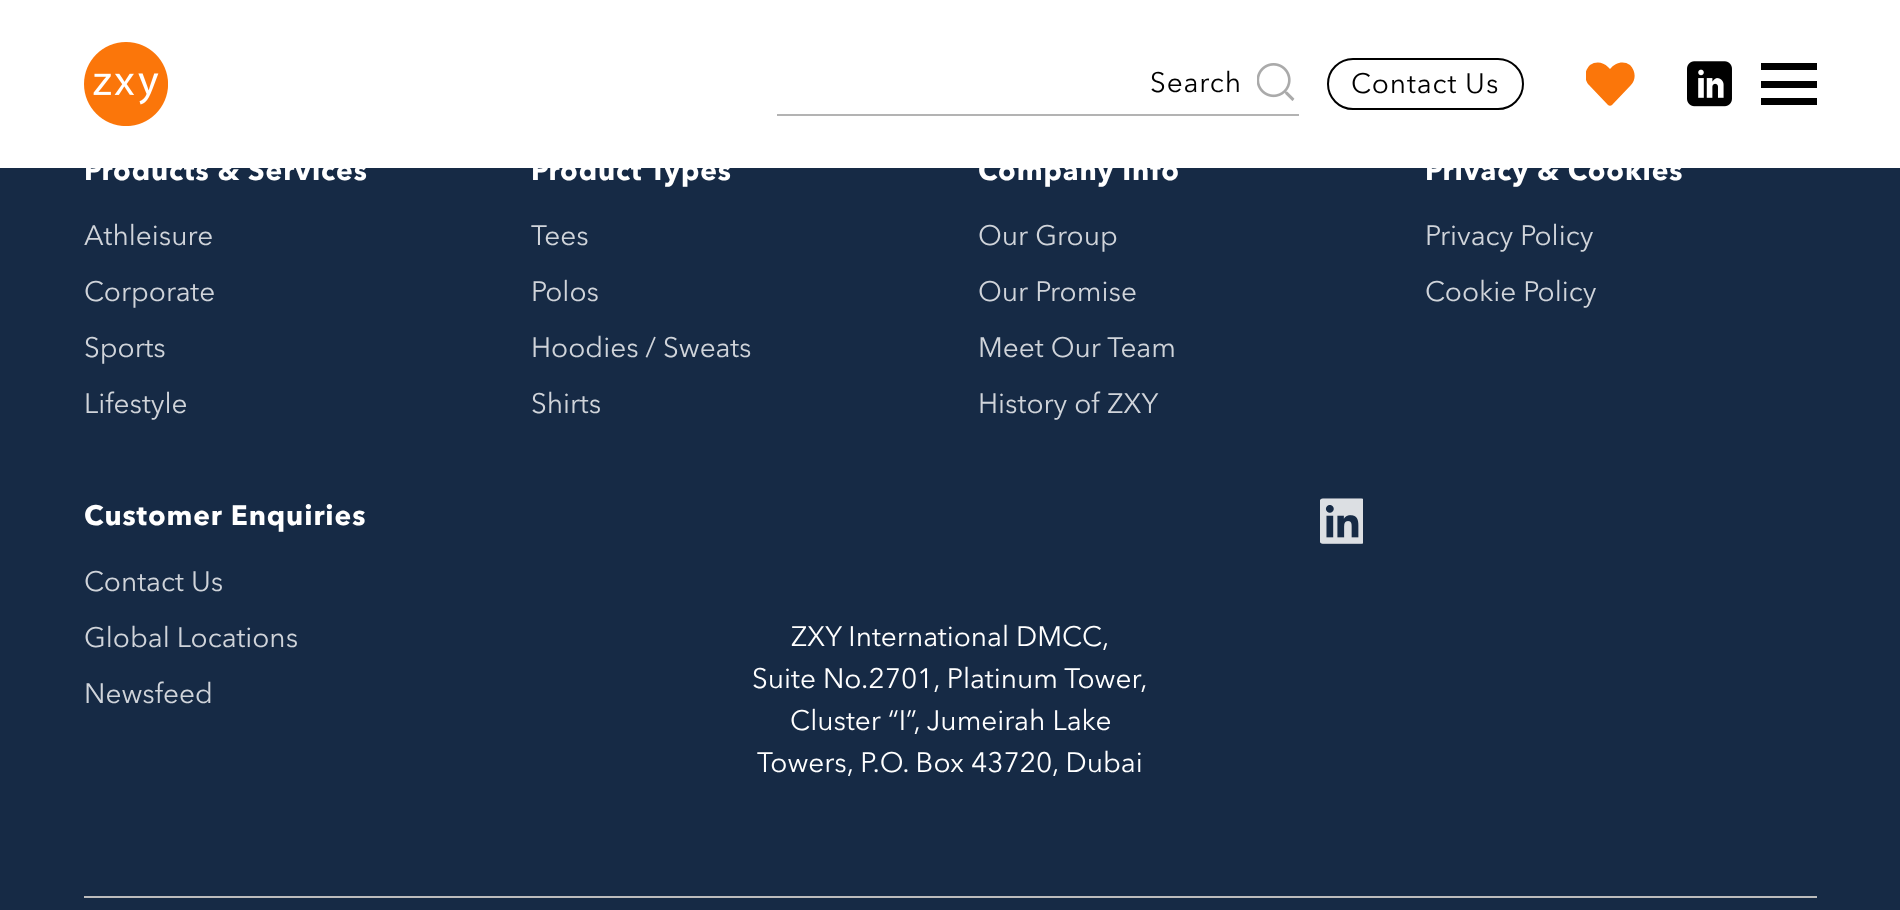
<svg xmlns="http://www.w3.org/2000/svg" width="1900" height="910">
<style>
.a{font:28px Avenir Next;letter-spacing:0.9px;fill:#000}
.b{font:bold 28px Avenir Next;letter-spacing:0.9px;fill:#fff}
.c{font:28px Avenir Next;fill:#d0d4da}
.d{font:28px Avenir Next;fill:#fff}
</style>
<defs>
<clipPath id="clip1"><path d="M1586 60h49v49H1586z"/></clipPath>
</defs>
<rect width="100%" height="100%" fill="#162a45"/>
<path fill="#fff" d="M0 0h1900v168H0z"/>
<image href="1.png" x="84" y="42" width="84" height="84"/>
<path fill="#b3b3b3" d="M777 114h522v2H777z"/>
<image href="2.png" x="1257" y="63" width="38" height="38"/>
<rect fill="none" stroke="#000" stroke-width="2" x="1328" y="59" width="195" height="50" rx="25"/>
<g clip-path="url(#clip1)">
<path fill="#fb760a" d="M1630 65c-7-5-15-2-20 4l-2-2c-5-5-12-6-18-2c-6 6-6 15-1 20l19 20c1 1 3 1 4 0l19-20c5-5 5-14-1-20z"/>
</g>
<image href="3.png" x="1687" y="61" width="45" height="46"/>
<path fill="#000" d="M1761 63h56v7H1761z"/>
<path fill="#000" d="M1761 81h56v7H1761z"/>
<path fill="#000" d="M1761 98h56v7H1761z"/>
<image href="4.png" x="1320" y="498" width="43" height="46"/>
<path fill="#bcbcbc" d="M84 896h1733v2H84z"/>
<text class="a" x="1150" y="92">Search</text>
<text class="a" x="1351" y="93">Contact Us</text>
<text class="b" x="84" y="180">Products &amp; Services</text>
<text class="c" x="84" y="245">Athleisure</text>
<text class="c" x="84" y="301">Corporate</text>
<text class="c" x="84" y="357">Sports</text>
<text class="c" x="84" y="413">Lifestyle</text>
<text class="b" x="531" y="180">Product Types</text>
<text class="c" x="531" y="245">Tees</text>
<text class="c" x="531" y="301">Polos</text>
<text class="c" x="531" y="357">Hoodies / Sweats</text>
<text class="c" x="531" y="413">Shirts</text>
<text class="b" x="978" y="180">Company Info</text>
<text class="c" x="978" y="245">Our Group</text>
<text class="c" x="978" y="301">Our Promise</text>
<text class="c" x="978" y="357">Meet Our Team</text>
<text class="c" x="978" y="413">History of ZXY</text>
<text class="b" x="1425" y="180">Privacy &amp; Cookies</text>
<text class="c" x="1425" y="245">Privacy Policy</text>
<text class="c" x="1425" y="301">Cookie Policy</text>
<text class="b" x="84" y="525">Customer Enquiries</text>
<text class="c" x="84" y="591">Contact Us</text>
<text class="c" x="84" y="647">Global Locations</text>
<text class="c" x="84" y="703">Newsfeed</text>
<text class="d" x="791" y="646">ZXY International DMCC,</text>
<text class="d" x="752" y="688">Suite No.2701, Platinum Tower,</text>
<text class="d" x="790" y="730">Cluster “I”, Jumeirah Lake</text>
<text class="d" x="757" y="772">Towers, P.O. Box 43720, Dubai</text>
</svg>
